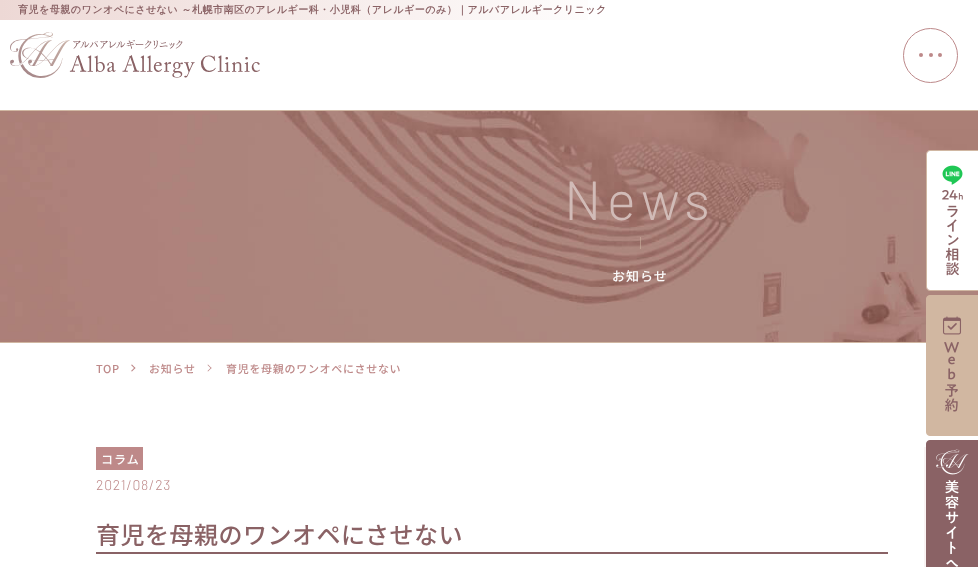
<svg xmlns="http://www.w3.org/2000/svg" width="978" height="567">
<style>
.a{font:bold 10px WenQuanYi Zen Hei;letter-spacing:0.5px;fill:#8a6265}
.b{font:300 55px Barlow;letter-spacing:5.5px;fill:#d1bbb7}
.c{font:500 13px Noto Sans JP;letter-spacing:1px;fill:#fcfcfc}
.d{font:500 11px Noto Sans JP;letter-spacing:0.7px;fill:#be8989}
.e{font:500 12px Noto Sans JP;letter-spacing:1px;fill:#fcfcfc}
.f{font:300 14px Barlow;letter-spacing:0.75px;fill:#be8989}
.g{font:500 24px Noto Sans JP;letter-spacing:0.5px;fill:#8a6265}
</style>
<defs>
<linearGradient id="g1" gradientUnits="userSpaceOnUse" x1="0" y1="10" x2="625" y2="10"><stop offset="0" stop-color="#edd8d5"/><stop offset="1" stop-color="#fff"/></linearGradient>
</defs>
<rect width="100%" height="100%" fill="#fff"/>
<path fill="url(#g1)" d="M0 0h588v20H0z"/>
<image href="1.png" x="10" y="32" width="250" height="46"/>
<circle fill="none" stroke="#bd898a" cx="930.5" cy="55.5" r="27"/>
<circle fill="#bd898a" cx="931" cy="55" r="2"/>
<circle fill="#bd898a" cx="921" cy="55" r="2"/>
<circle fill="#bd898a" cx="940" cy="55" r="2"/>
<image href="2.png" x="0" y="111" width="978" height="231"/>
<path fill="#d0b7a2" d="M0 110h978v1H0z"/>
<path fill="#d0b7a2" d="M0 342h926v1H0z"/>
<path fill="#d0b7a28c" d="M640 237h1v12H640z"/>
<path fill="#d0b7a2" fill-rule="evenodd" d="M930 150h48v141h-48c-2 0-4-2-4-4v-133c0-2 2-4 4-4zm0 1h48v139h-48c-2 0-3-1-3-3v-133c0-2 1-3 3-3z"/>
<image href="3.png" x="927" y="151" width="51" height="139"/>
<image href="4.png" x="926" y="295" width="52" height="141"/>
<image href="5.png" x="926" y="440" width="52" height="127"/>
<path fill="#be8989" d="M131 365l1-.5l3.5 3.5l-1 .5z"/>
<path fill="#be8989" d="M131 371l3.5-3.5l1 .5l-3.5 3.5z"/>
<path fill="#be8989" d="M207.5 365l.5-.5l3.5 3.5l-.5 .5z"/>
<path fill="#be8989" d="M207.5 371l3.5-3.5l.5 .5l-3.5 3.5z"/>
<path fill="#be8989" d="M96 447h47v23H96z"/>
<path fill="#896265" d="M96 552h792v2H96z"/>
<path fill="#f9f3f3" d="M924 447h2v120H924z"/>
<text class="a" x="18" y="13">育児を母親のワンオペにさせない ～札幌市南区のアレルギー科・小児科（アレルギーのみ）｜アルバアレルギークリニック</text>
<text class="b" x="564" y="220">News</text>
<text class="c" x="612" y="281">お知らせ</text>
<text class="d" x="96" y="373">TOP</text>
<text class="d" x="149" y="373">お知らせ</text>
<text class="d" x="226" y="373">育児を母親のワンオペにさせない</text>
<text class="e" x="101" y="464">コラム</text>
<text class="f" x="96" y="490">2021/08/23</text>
<text class="g" x="96" y="544">育児を母親のワンオペにさせない</text>
</svg>
